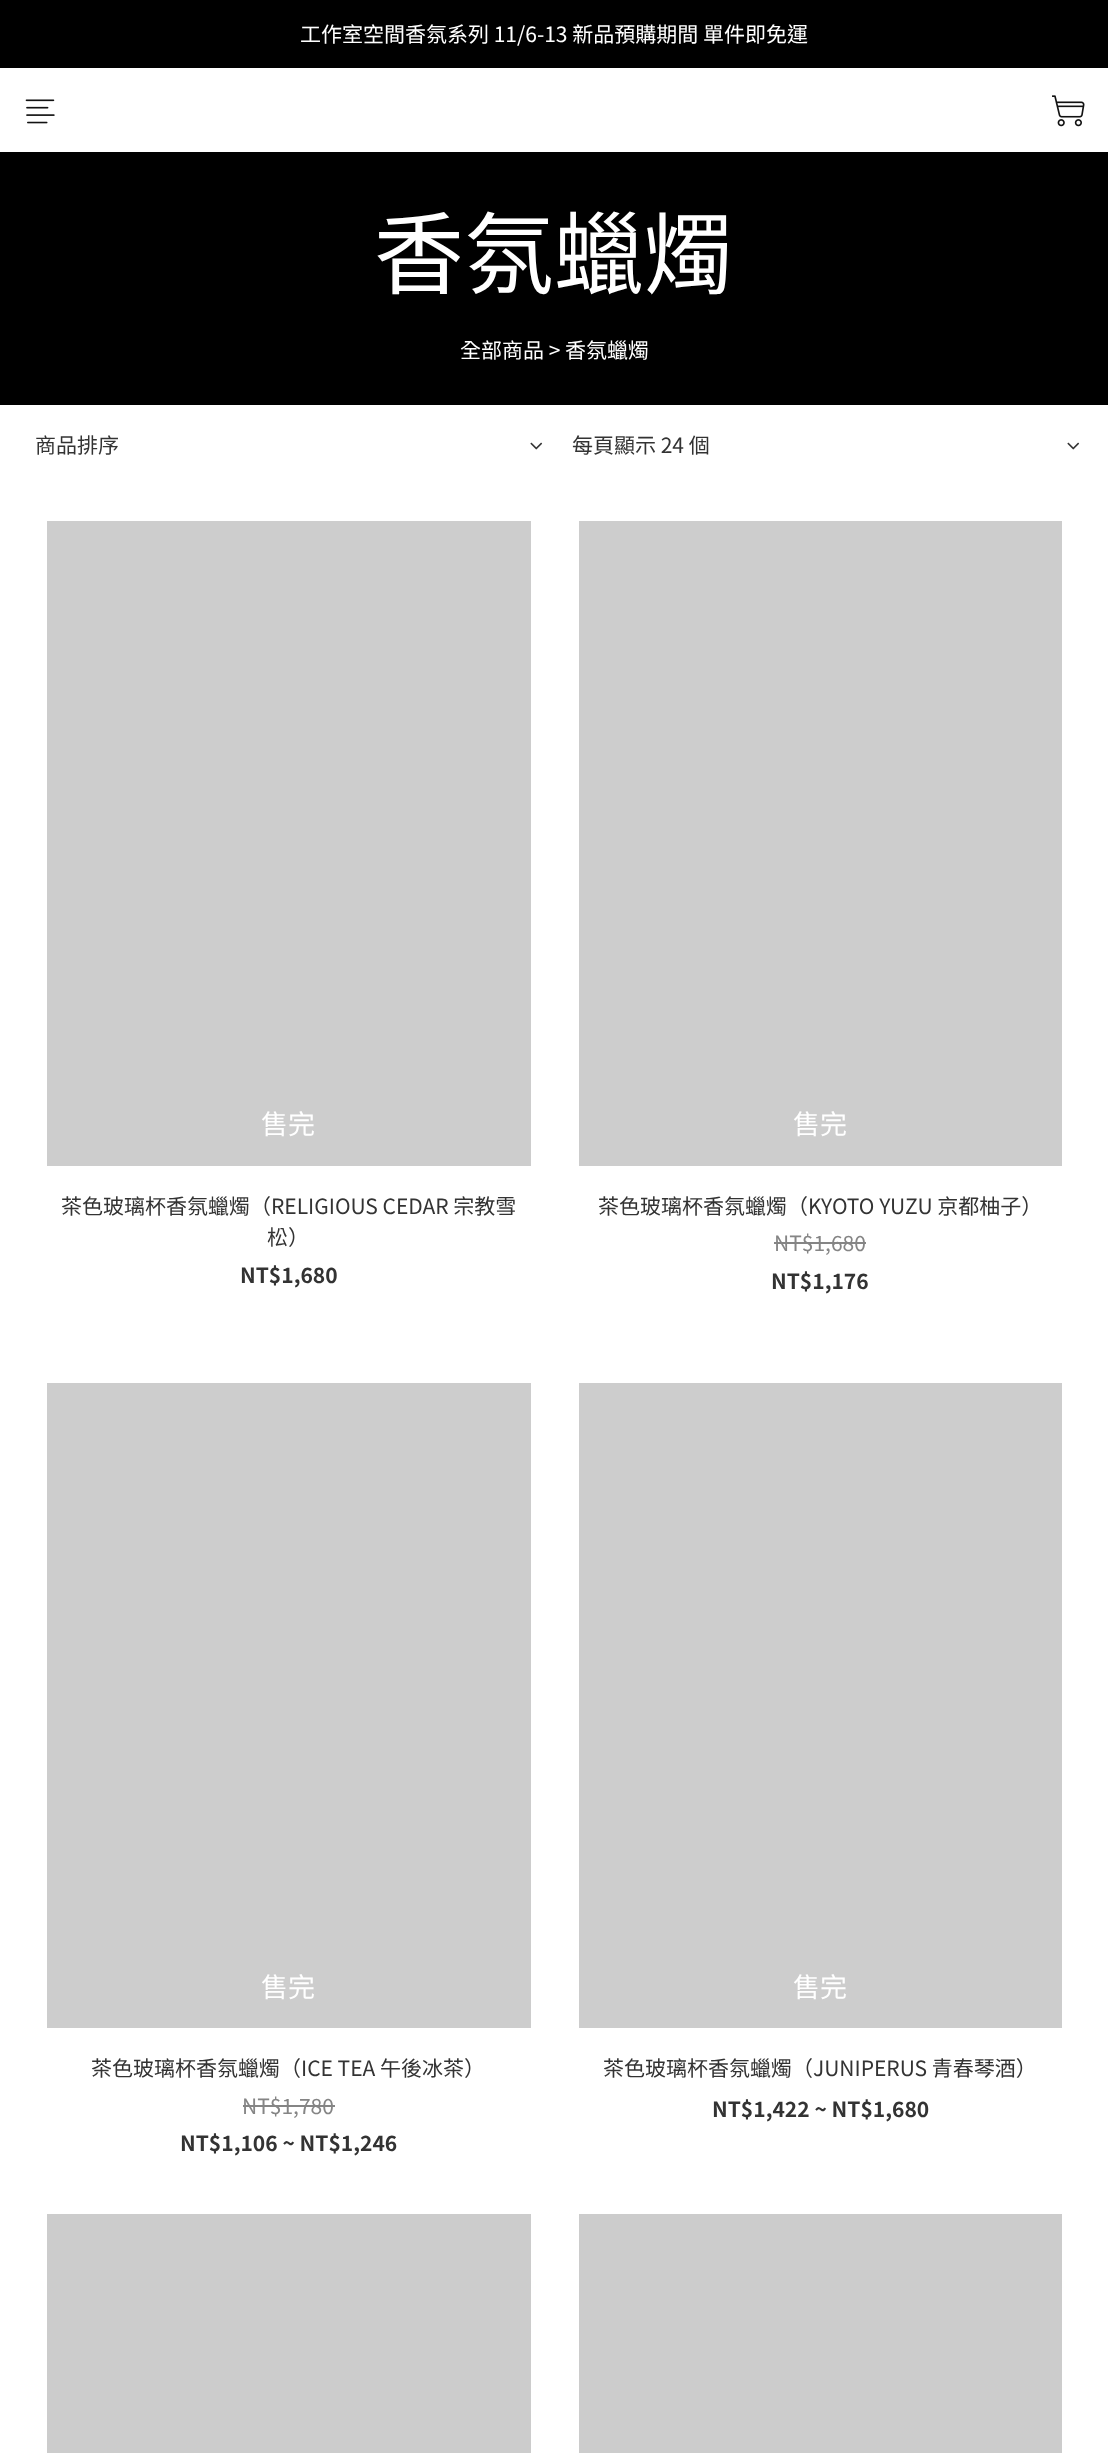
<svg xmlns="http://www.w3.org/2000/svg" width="1108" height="2453">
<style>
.a{font:21px Noto Sans TC;fill:#fff}
.b{font:90px Noto Sans TC;fill:#fff}
.c{font:21px Noto Sans TC;fill:#333}
.d{font:27px Noto Sans TC;fill:#fff}
.e{font:bold 21px Noto Sans TC;fill:#333}
.f{font:21px Noto Sans TC;fill:#858585}
</style>
<rect width="100%" height="100%" fill="#fff"/>
<path fill="#000" d="M0 152h1108v253H0z"/>
<path fill="#0000000f" filter="blur(4.5px)" d="M0 71h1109v84H0z"/>
<path fill="#000" d="M0 0h1108v68H0z"/>
<path fill="#fff" d="M0 68h1108v84H0z"/>
<image href="1.png" x="25" y="99" width="30" height="25"/>
<image href="2.png" x="1052" y="95" width="33" height="32"/>
<image href="3.png" x="530" y="442" width="13" height="8"/>
<image href="3.png" x="1067" y="442" width="13" height="8"/>
<path fill="#cdcdcd" d="M47 521h484v645H47z"/>
<path fill="#cdcdcd" d="M579 521h483v645H579z"/>
<path fill="#858585" d="M774 1242h92v2H774z"/>
<path fill="#cdcdcd" d="M47 1383h484v645H47z"/>
<path fill="#858585" d="M243 2105h92v2H243z"/>
<path fill="#cdcdcd" d="M579 1383h483v645H579z"/>
<path fill="#ccc" d="M47 2214h484v239H47z"/>
<path fill="#ccc" d="M579 2214h483v239H579z"/>
<text class="a" x="300" y="42">工作室空間香氛系列 11/6-13 新品預購期間 單件即免運</text>
<text class="b" x="374" y="287">香氛蠟燭</text>
<text class="a" x="460" y="358">全部商品 &gt; 香氛蠟燭</text>
<text class="c" x="35" y="453">商品排序</text>
<text class="c" x="572" y="453">每頁顯示 24 個</text>
<text class="d" x="261" y="1134">售完</text>
<text class="c" x="61" y="1214">茶色玻璃杯香氛蠟燭（RELIGIOUS CEDAR 宗教雪</text>
<text class="c" x="267" y="1245">松）</text>
<text class="e" x="240" y="1283">NT$1,680</text>
<text class="d" x="793" y="1134">售完</text>
<text class="c" x="598" y="1214">茶色玻璃杯香氛蠟燭（KYOTO YUZU 京都柚子）</text>
<text class="f" x="774" y="1251">NT$1,680</text>
<text class="e" x="771" y="1289">NT$1,176</text>
<text class="d" x="261" y="1997">售完</text>
<text class="c" x="91" y="2076">茶色玻璃杯香氛蠟燭（ICE TEA 午後冰茶）</text>
<text class="f" x="242" y="2114">NT$1,780</text>
<text class="e" x="180" y="2151">NT$1,106 ~ NT$1,246</text>
<text class="d" x="793" y="1997">售完</text>
<text class="c" x="603" y="2076">茶色玻璃杯香氛蠟燭（JUNIPERUS 青春琴酒）</text>
<text class="e" x="712" y="2117">NT$1,422 ~ NT$1,680</text>
</svg>
